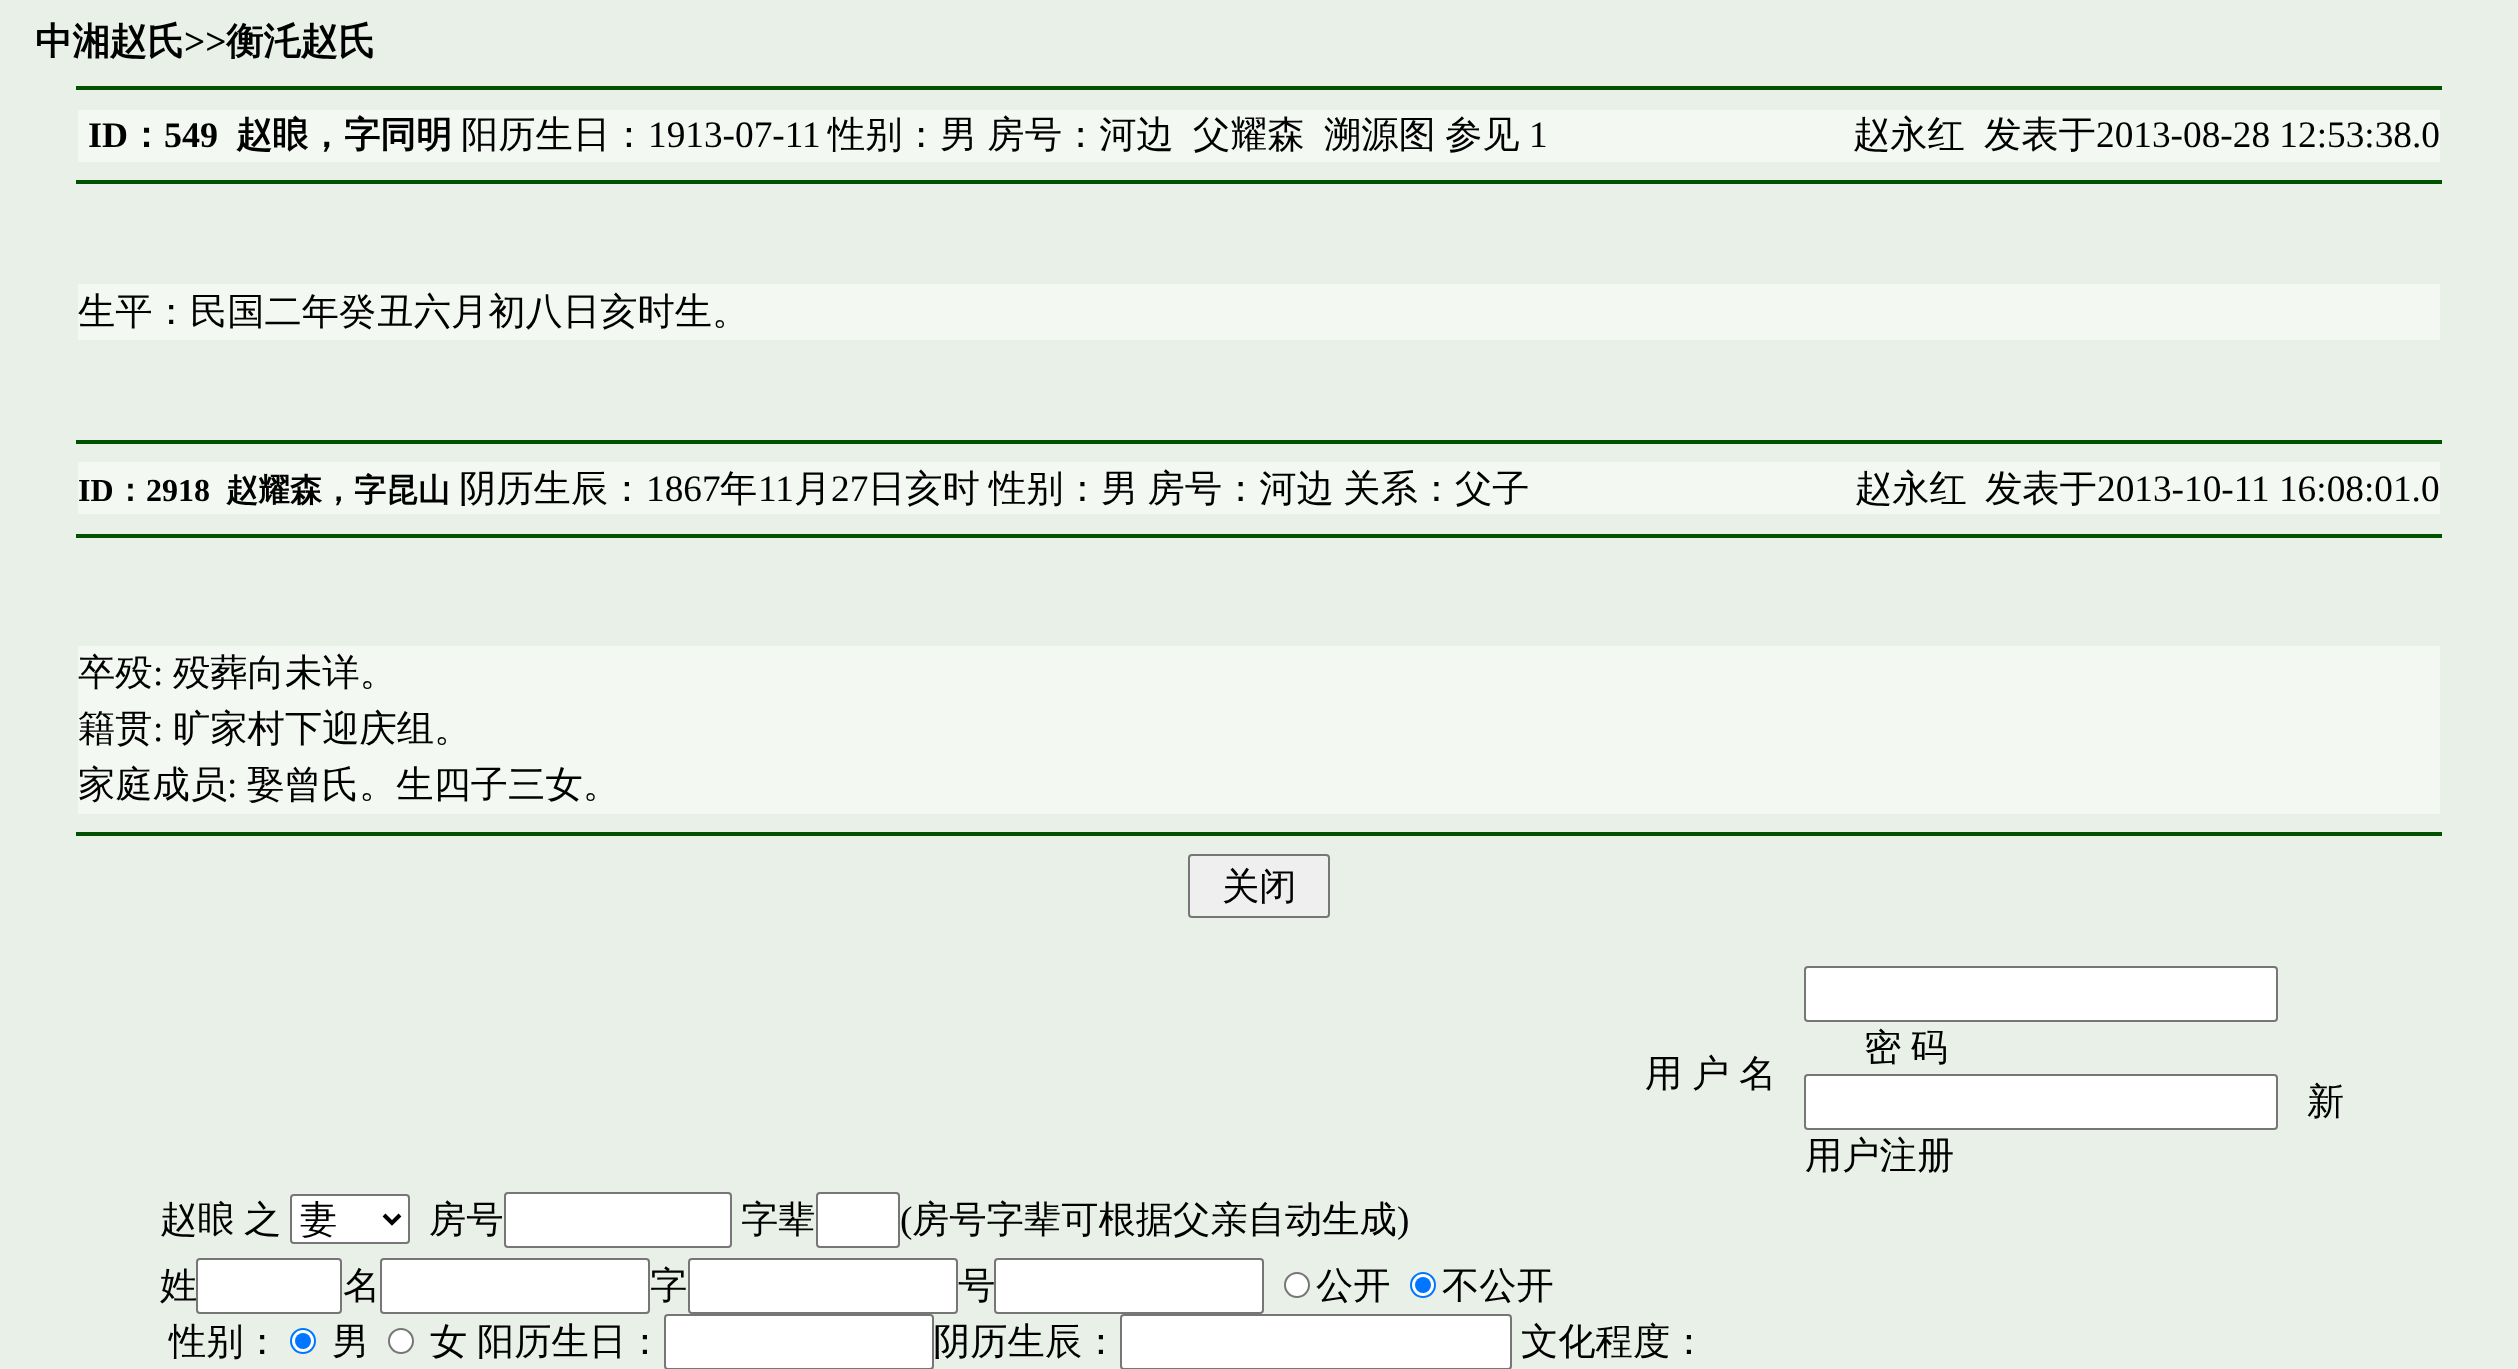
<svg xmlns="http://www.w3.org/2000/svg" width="2518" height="1369">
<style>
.a{font:bold 37.3px WenQuanYi Zen Hei;fill:#000}
.b{font:bold 37.3px Liberation Serif;fill:#000}
.c{font:bold 36px Liberation Serif;fill:#000}
.d{font:bold 36px WenQuanYi Zen Hei;fill:#000}
.e{font:500 37.3px WenQuanYi Zen Hei;fill:#000}
.f{font:37.3px Liberation Serif;fill:#000}
.g{font:bold 32px Liberation Serif;fill:#000}
.h{font:bold 32px WenQuanYi Zen Hei;fill:#000}
</style>
<rect width="100%" height="100%" fill="#e8f0e8"/>
<path fill="#005100" d="M76 86h2366v4H76z"/>
<path fill="#f3f8f3" d="M78 110h2362v52H78z"/>
<path fill="#005100" d="M76 180h2366v4H76z"/>
<path fill="#f3f8f3" d="M78 284h2362v56H78z"/>
<path fill="#005100" d="M76 440h2366v4H76z"/>
<path fill="#f3f8f3" d="M78 462h2362v52H78z"/>
<path fill="#005100" d="M76 534h2366v4H76z"/>
<path fill="#f3f8f3" d="M78 646h2362v168H78z"/>
<path fill="#005100" d="M76 832h2366v4H76z"/>
<rect fill="#efefef" stroke="#767676" stroke-width="2" x="1189" y="855" width="140" height="62" rx="3"/>
<rect fill="#fff" stroke="#767676" stroke-width="2" x="1805" y="967" width="472" height="54" rx="3"/>
<rect fill="#fff" stroke="#767676" stroke-width="2" x="1805" y="1075" width="472" height="54" rx="3"/>
<rect fill="#fff" stroke="#767676" stroke-width="2" x="291" y="1195" width="118" height="48" rx="3"/>
<path fill="none" stroke="#000" stroke-width="4" d="M384 1215l8 8l8-8"/>
<rect fill="#fff" stroke="#767676" stroke-width="2" x="505" y="1193" width="226" height="54" rx="3"/>
<rect fill="#fff" stroke="#767676" stroke-width="2" x="817" y="1193" width="82" height="54" rx="3"/>
<rect fill="#fff" stroke="#767676" stroke-width="2" x="197" y="1259" width="144" height="54" rx="3"/>
<rect fill="#fff" stroke="#767676" stroke-width="2" x="381" y="1259" width="268" height="54" rx="3"/>
<rect fill="#fff" stroke="#767676" stroke-width="2" x="689" y="1259" width="268" height="54" rx="3"/>
<rect fill="#fff" stroke="#767676" stroke-width="2" x="995" y="1259" width="268" height="54" rx="3"/>
<circle fill="#fff" stroke="#767676" stroke-width="2" cx="1297" cy="1285" r="12"/>
<circle fill="#fff" stroke="#0075ff" stroke-width="2" cx="1423" cy="1285" r="12"/>
<circle fill="#0075ff" cx="1423" cy="1285" r="8"/>
<circle fill="#fff" stroke="#0075ff" stroke-width="2" cx="303" cy="1341" r="12"/>
<circle fill="#0075ff" cx="303" cy="1341" r="8"/>
<circle fill="#fff" stroke="#767676" stroke-width="2" cx="401" cy="1341" r="12"/>
<rect fill="#fff" stroke="#767676" stroke-width="2" x="665" y="1315" width="268" height="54" rx="3"/>
<rect fill="#fff" stroke="#767676" stroke-width="2" x="1121" y="1315" width="390" height="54" rx="3"/>
<text class="a" x="35" y="54">中湘赵氏</text>
<text class="b" x="184" y="54">&gt;&gt;</text>
<text class="a" x="226" y="54">衡汑赵氏</text>
<text class="c" x="88" y="147">ID</text>
<text class="d" x="128" y="147">：</text>
<text class="c" x="164" y="147">549</text>
<text class="d" x="236" y="147">赵䀶，字同明</text>
<text class="e" x="461" y="147">阳历生日：</text>
<text class="f" x="648" y="147">1913-07-11</text>
<text class="e" x="828" y="147" word-spacing="-1">性别：男 房号：河边</text>
<text class="e" x="1193" y="147">父耀森</text>
<text class="e" x="1324" y="147">溯源图</text>
<text class="e" x="1445" y="147">参见</text>
<text class="f" x="1529" y="147">1</text>
<text class="e" x="1853" y="147">赵永红</text>
<text class="e" x="1984" y="147">发表于</text>
<text class="f" x="2096" y="147">2013-08-28 12:53:38.0</text>
<text class="e" x="78" y="324">生平：民国二年癸丑六月初八日亥时生。</text>
<text class="g" x="78" y="501">ID</text>
<text class="h" x="114" y="501">：</text>
<text class="g" x="146" y="501">2918</text>
<text class="h" x="226" y="501">赵耀森，字昆山</text>
<text class="e" x="459" y="501">阴历生辰：</text>
<text class="f" x="646" y="501">1867</text>
<text class="e" x="720" y="501">年</text>
<text class="f" x="758" y="501">11</text>
<text class="e" x="794" y="501">月</text>
<text class="f" x="831" y="501">27</text>
<text class="e" x="868" y="501" word-spacing="-2">日亥时 性别：男 房号：河边 关系：父子</text>
<text class="e" x="1855" y="501">赵永红</text>
<text class="e" x="1985" y="501">发表于</text>
<text class="f" x="2097" y="501">2013-10-11 16:08:01.0</text>
<text class="e" x="78" y="685">卒殁</text>
<text class="f" x="153" y="685">:</text>
<text class="e" x="173" y="685">殁葬向未详。</text>
<text class="e" x="78" y="741">籍贯</text>
<text class="f" x="153" y="741">:</text>
<text class="e" x="173" y="741">旷家村下迎庆组。</text>
<text class="e" x="78" y="797">家庭成员</text>
<text class="f" x="227" y="797">:</text>
<text class="e" x="247" y="797">娶曾氏。生四子三女。</text>
<text class="e" x="1222" y="899">关闭</text>
<text class="e" x="1645" y="1086">用</text>
<text class="e" x="1692" y="1086">户</text>
<text class="e" x="1739" y="1086">名</text>
<text class="e" x="1864" y="1060" word-spacing="-2">密 码</text>
<text class="e" x="2307" y="1114">新</text>
<text class="e" x="1805" y="1168">用户注册</text>
<text class="e" x="160" y="1232">赵䀶</text>
<text class="e" x="244" y="1232">之</text>
<text class="e" x="300" y="1232">妻</text>
<text class="e" x="429" y="1232">房号</text>
<text class="e" x="741" y="1232">字辈</text>
<text class="f" x="900" y="1232">(</text>
<text class="e" x="912" y="1232">房号字辈可根据父亲自动生成</text>
<text class="f" x="1397" y="1232">)</text>
<text class="e" x="160" y="1298">姓</text>
<text class="e" x="343" y="1298">名</text>
<text class="e" x="650" y="1298">字</text>
<text class="e" x="958" y="1298">号</text>
<text class="e" x="1316" y="1298">公开</text>
<text class="e" x="1442" y="1298">不公开</text>
<text class="e" x="169" y="1354">性别：</text>
<text class="e" x="332" y="1354">男</text>
<text class="e" x="430" y="1354">女</text>
<text class="e" x="477" y="1354">阳历生日：</text>
<text class="e" x="933" y="1354">阴历生辰：</text>
<text class="e" x="1521" y="1354">文化程度：</text>
</svg>
